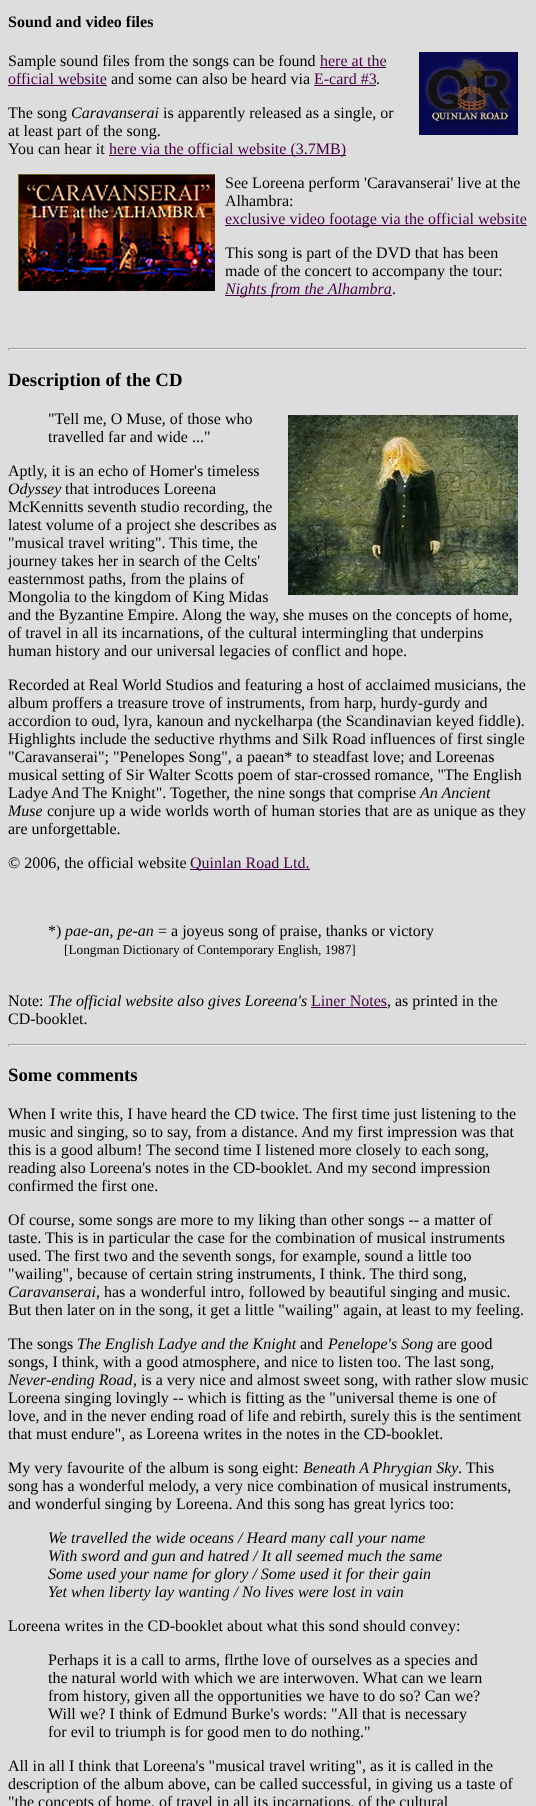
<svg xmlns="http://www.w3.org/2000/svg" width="536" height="1806">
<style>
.a{font:bold 16px Liberation Serif;fill:#000}
.b{font:16px Liberation Serif;fill:#000}
.c{font:16px Liberation Serif;fill:#404}
.d{font:italic 16px Liberation Serif;fill:#000}
.e{font:italic 16px Liberation Serif;fill:#404}
.f{font:bold 18.75px Liberation Serif;fill:#000}
.g{font:13.3px Liberation Serif;fill:#000}
</style>
<rect width="100%" height="100%" fill="#ddd"/>
<path fill="#404" d="M320 67h66v1H320z"/>
<image href="1.png" x="419" y="52" width="99" height="83"/>
<path fill="#404" d="M8 85h99v1H8z"/>
<path fill="#404" d="M314 85h62v1H314z"/>
<path fill="#404" d="M109 155h237v1H109z"/>
<image href="2.png" x="18" y="174" width="197" height="117"/>
<path fill="#404" d="M225 225h302v1H225z"/>
<path fill="#404" d="M225 295h167v1H225z"/>
<path fill="#9f9f9f" d="M8 348h520v1H8z"/>
<path fill="#eee" d="M527 348h1v2H527z"/>
<path fill="#eee" d="M8 349h520v1H8z"/>
<path fill="#9f9f9f" d="M8 348h1v2H8z"/>
<image href="3.png" x="288" y="415" width="230" height="180"/>
<path fill="#404" d="M190 869h120v1H190z"/>
<path fill="#404" d="M311 1007h76v1H311z"/>
<path fill="#9f9f9f" d="M8 1044h520v1H8z"/>
<path fill="#eee" d="M527 1044h1v2H527z"/>
<path fill="#eee" d="M8 1045h520v1H8z"/>
<path fill="#9f9f9f" d="M8 1044h1v2H8z"/>
<text class="a" x="8" y="27">Sound and video files</text>
<text class="b" x="8" y="66">Sample sound files from the songs can be found</text>
<text class="c" x="320" y="66">here at the</text>
<text class="c" x="8" y="84">official website</text>
<text class="b" x="111" y="84">and some can also be heard via</text>
<text class="c" x="314" y="84">E-card #3</text>
<text class="b" x="376" y="84">.</text>
<text class="b" x="8" y="118">The song</text>
<text class="d" x="71" y="118">Caravanserai</text>
<text class="b" x="163" y="118">is apparently released as a single, or</text>
<text class="b" x="8" y="136">at least part of the song.</text>
<text class="b" x="8" y="154">You can hear it</text>
<text class="c" x="109" y="154">here via the official website (3.7MB)</text>
<text class="b" x="225" y="188">See Loreena perform 'Caravanserai' live at the</text>
<text class="b" x="225" y="206">Alhambra:</text>
<text class="c" x="225" y="224">exclusive video footage via the official website</text>
<text class="b" x="225" y="258">This song is part of the DVD that has been</text>
<text class="b" x="225" y="276">made of the concert to accompany the tour:</text>
<text class="e" x="225" y="294">Nights from the Alhambra</text>
<text class="b" x="392" y="294">.</text>
<text class="f" x="8" y="386">Description of the CD</text>
<text class="b" x="48" y="424">"Tell me, O Muse, of those who</text>
<text class="b" x="48" y="442">travelled far and wide ..."</text>
<text class="b" x="8" y="476">Aptly, it is an echo of Homer's timeless</text>
<text class="d" x="8" y="494">Odyssey</text>
<text class="b" x="65" y="494">that introduces Loreena</text>
<text class="b" x="8" y="512">McKennitts seventh studio recording, the</text>
<text class="b" x="8" y="530">latest volume of a project she describes as</text>
<text class="b" x="8" y="548">"musical travel writing". This time, the</text>
<text class="b" x="8" y="566">journey takes her in search of the Celts'</text>
<text class="b" x="8" y="584">easternmost paths, from the plains of</text>
<text class="b" x="8" y="602">Mongolia to the kingdom of King Midas</text>
<text class="b" x="8" y="620">and the Byzantine Empire. Along the way, she muses on the concepts of home,</text>
<text class="b" x="8" y="638">of travel in all its incarnations, of the cultural intermingling that underpins</text>
<text class="b" x="8" y="656">human history and our universal legacies of conflict and hope.</text>
<text class="b" x="8" y="690">Recorded at Real World Studios and featuring a host of acclaimed musicians, the</text>
<text class="b" x="8" y="708">album proffers a treasure trove of instruments, from harp, hurdy-gurdy and</text>
<text class="b" x="8" y="726">accordion to oud, lyra, kanoun and nyckelharpa (the Scandinavian keyed fiddle).</text>
<text class="b" x="8" y="744">Highlights include the seductive rhythms and Silk Road influences of first single</text>
<text class="b" x="8" y="762">"Caravanserai"; "Penelopes Song", a paean* to steadfast love; and Loreenas</text>
<text class="b" x="8" y="780">musical setting of Sir Walter Scotts poem of star-crossed romance, "The English</text>
<text class="b" x="8" y="798">Ladye And The Knight". Together, the nine songs that comprise</text>
<text class="d" x="420" y="798">An Ancient</text>
<text class="d" x="8" y="816">Muse</text>
<text class="b" x="47" y="816">conjure up a wide worlds worth of human stories that are as unique as they</text>
<text class="b" x="8" y="834">are unforgettable.</text>
<text class="b" x="8" y="868">© 2006, the official website</text>
<text class="c" x="190" y="868">Quinlan Road Ltd.</text>
<text class="b" x="48" y="936">*)</text>
<text class="d" x="65" y="936">pae-an, pe-an</text>
<text class="b" x="158" y="936">= a joyeus song of praise, thanks or victory</text>
<text class="g" x="64" y="954">[Longman Dictionary of Contemporary English, 1987]</text>
<text class="b" x="8" y="1006">Note:</text>
<text class="d" x="48" y="1006">The official website also gives Loreena's</text>
<text class="c" x="311" y="1006">Liner Notes</text>
<text class="b" x="387" y="1006">, as printed in the</text>
<text class="b" x="8" y="1024">CD-booklet.</text>
<text class="f" x="8" y="1081">Some comments</text>
<text class="b" x="8" y="1119">When I write this, I have heard the CD twice. The first time just listening to the</text>
<text class="b" x="8" y="1137">music and singing, so to say, from a distance. And my first impression was that</text>
<text class="b" x="8" y="1155">this is a good album! The second time I listened more closely to each song,</text>
<text class="b" x="8" y="1173">reading also Loreena's notes in the CD-booklet. And my second impression</text>
<text class="b" x="8" y="1191">confirmed the first one.</text>
<text class="b" x="8" y="1225">Of course, some songs are more to my liking than other songs -- a matter of</text>
<text class="b" x="8" y="1243">taste. This is in particular the case for the combination of musical instruments</text>
<text class="b" x="8" y="1261">used. The first two and the seventh songs, for example, sound a little too</text>
<text class="b" x="8" y="1279">"wailing", because of certain string instruments, I think. The third song,</text>
<text class="d" x="8" y="1297">Caravanserai</text>
<text class="b" x="96" y="1297">, has a wonderful intro, followed by beautiful singing and music.</text>
<text class="b" x="8" y="1315">But then later on in the song, it get a little "wailing" again, at least to my feeling.</text>
<text class="b" x="8" y="1349">The songs</text>
<text class="d" x="77" y="1349">The English Ladye and the Knight</text>
<text class="b" x="300" y="1349">and</text>
<text class="d" x="328" y="1349">Penelope's Song</text>
<text class="b" x="437" y="1349">are good</text>
<text class="b" x="8" y="1367">songs, I think, with a good atmosphere, and nice to listen too. The last song,</text>
<text class="d" x="8" y="1385">Never-ending Road</text>
<text class="b" x="133" y="1385">, is a very nice and almost sweet song, with rather slow music</text>
<text class="b" x="8" y="1403">Loreena singing lovingly -- which is fitting as the "universal theme is one of</text>
<text class="b" x="8" y="1421">love, and in the never ending road of life and rebirth, surely this is the sentiment</text>
<text class="b" x="8" y="1439">that must endure", as Loreena writes in the notes in the CD-booklet.</text>
<text class="b" x="8" y="1473">My very favourite of the album is song eight:</text>
<text class="d" x="303" y="1473">Beneath A Phrygian Sky</text>
<text class="b" x="458" y="1473">. This</text>
<text class="b" x="8" y="1491">song has a wonderful melody, a very nice combination of musical instruments,</text>
<text class="b" x="8" y="1509">and wonderful singing by Loreena. And this song has great lyrics too:</text>
<text class="d" x="48" y="1543">We travelled the wide oceans / Heard many call your name</text>
<text class="d" x="48" y="1561">With sword and gun and hatred / It all seemed much the same</text>
<text class="d" x="48" y="1579">Some used your name for glory / Some used it for their gain</text>
<text class="d" x="48" y="1597">Yet when liberty lay wanting / No lives were lost in vain</text>
<text class="b" x="8" y="1631">Loreena writes in the CD-booklet about what this sond should convey:</text>
<text class="b" x="48" y="1665">Perhaps it is a call to arms, flrthe love of ourselves as a species and</text>
<text class="b" x="48" y="1683">the natural world with which we are interwoven. What can we learn</text>
<text class="b" x="48" y="1701">from history, given all the opportunities we have to do so? Can we?</text>
<text class="b" x="48" y="1719">Will we? I think of Edmund Burke's words: "All that is necessary</text>
<text class="b" x="48" y="1737">for evil to triumph is for good men to do nothing."</text>
<text class="b" x="8" y="1771">All in all I think that Loreena's "musical travel writing", as it is called in the</text>
<text class="b" x="8" y="1789">description of the album above, can be called successful, in giving us a taste of</text>
<text class="b" x="8" y="1807">"the concepts of home, of travel in all its incarnations, of the cultural</text>
</svg>
